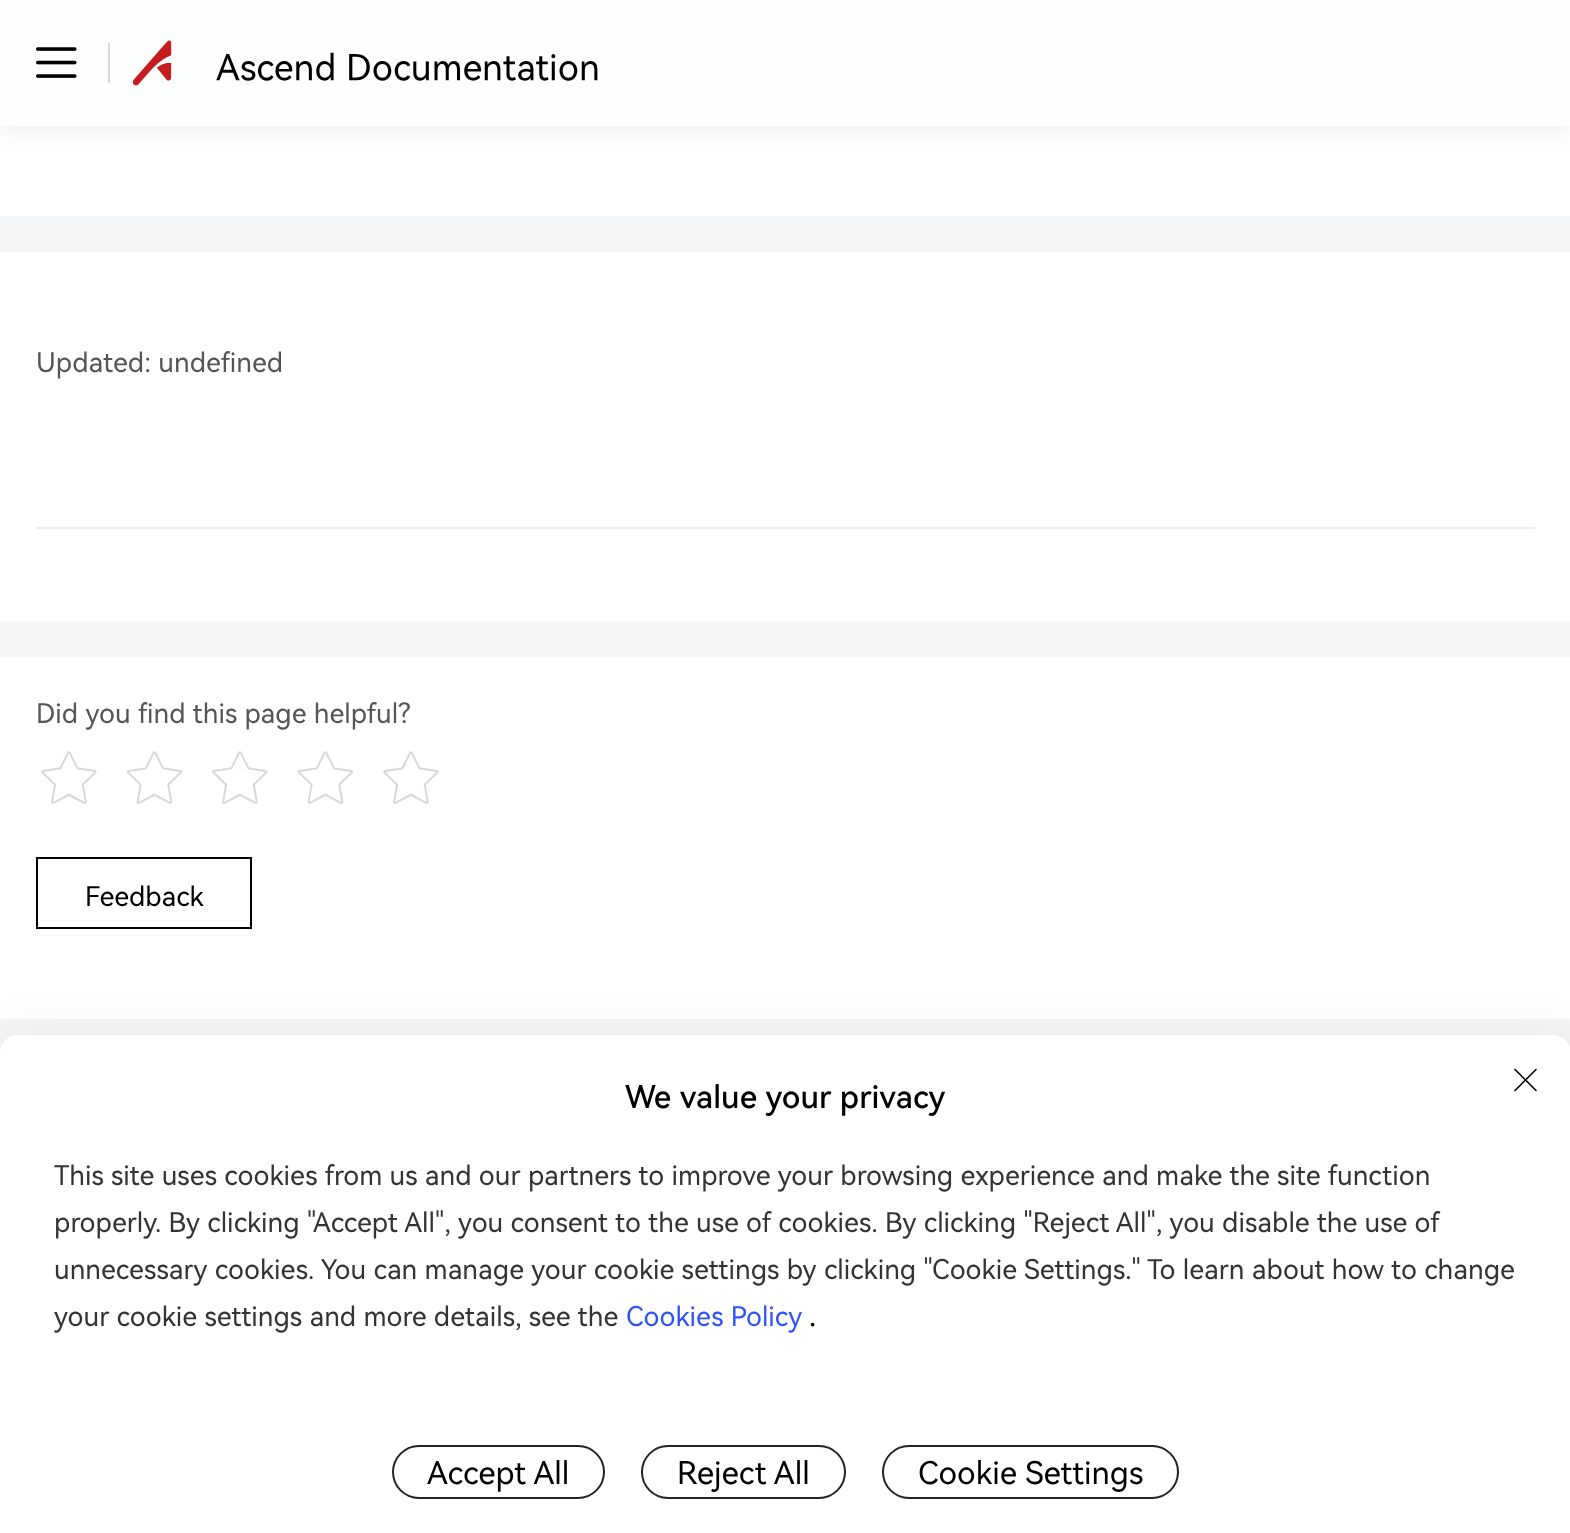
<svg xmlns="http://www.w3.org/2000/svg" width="1570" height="1533">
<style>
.a{font:36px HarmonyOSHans;fill:#000}
.b{font:27px HarmonyOSHans;fill:#555}
.c{font:27px HarmonyOSHans;fill:#000}
.d{font:500 31.5px HarmonyOSHans;fill:#000}
.e{font:27px HarmonyOSHans;fill:#333}
.f{font:27px HarmonyOSHans;fill:#2e53fa}
.g{font:31.5px HarmonyOSHans;fill:#000}
</style>
<rect width="100%" height="100%" fill="#f5f6f8"/>
<path fill="#fff" d="M0 126h1570v90H0z"/>
<path fill="#0000000d" filter="blur(9px)" d="M0 7h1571v126H0z"/>
<path fill="#fdfefe" d="M0 0h1570v126H0z"/>
<image href="1.png" x="36" y="47" width="41" height="31"/>
<path fill="#d8d8d8" d="M108 43h2v40H108z"/>
<image href="2.png" x="132" y="40" width="40" height="46"/>
<path fill="#fff" d="M0 252h1570v767H0z"/>
<path fill="#eee" d="M36 527h1499v2H36z"/>
<path fill="#f5f6f8" d="M0 621h1570v36H0z"/>
<image href="3.png" x="41" y="751" width="56" height="53"/>
<image href="4.png" x="126" y="751" width="56" height="53"/>
<image href="5.png" x="212" y="751" width="56" height="53"/>
<image href="6.png" x="297" y="751" width="56" height="53"/>
<image href="3.png" x="383" y="751" width="56" height="53"/>
<path fill="none" stroke="#000" stroke-width="2" d="M37 858h214v70H37z"/>
<rect fill="#1214171a" filter="blur(27px)" y="1044" width="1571" height="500" rx="18"/>
<path fill="#fff" d="M18 1035h1535c10 0 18 8 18 18v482h-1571v-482c0-10 8-18 18-18z"/>
<image href="7.png" x="1514" y="1068" width="23" height="24"/>
<rect fill="none" stroke="#202329" stroke-width="2" x="393" y="1446" width="211" height="52" rx="26"/>
<rect fill="none" stroke="#202329" stroke-width="2" x="642" y="1446" width="203" height="52" rx="26"/>
<rect fill="none" stroke="#202329" stroke-width="2" x="883" y="1446" width="295" height="52" rx="26"/>
<text class="a" x="216" y="79">Ascend Documentation</text>
<text class="b" x="36" y="371">Updated: undefined</text>
<text class="b" x="36" y="722">Did you find this page helpful?</text>
<text class="c" x="85" y="905">Feedback</text>
<text class="d" x="625" y="1107">We value your privacy</text>
<text class="e" x="54" y="1184">This site uses cookies from us and our partners to improve your browsing experience and make the site function</text>
<text class="e" x="54" y="1231">properly. By clicking "Accept All", you consent to the use of cookies. By clicking "Reject All", you disable the use of</text>
<text class="e" x="54" y="1278">unnecessary cookies. You can manage your cookie settings by clicking "Cookie Settings." To learn about how to change</text>
<text class="e" x="54" y="1325">your cookie settings and more details, see the</text>
<text class="f" x="626" y="1325">Cookies Policy</text>
<text class="g" x="809" y="1325">.</text>
<text class="g" x="427" y="1483">Accept All</text>
<text class="g" x="677" y="1483">Reject All</text>
<text class="g" x="918" y="1483">Cookie Settings</text>
</svg>
